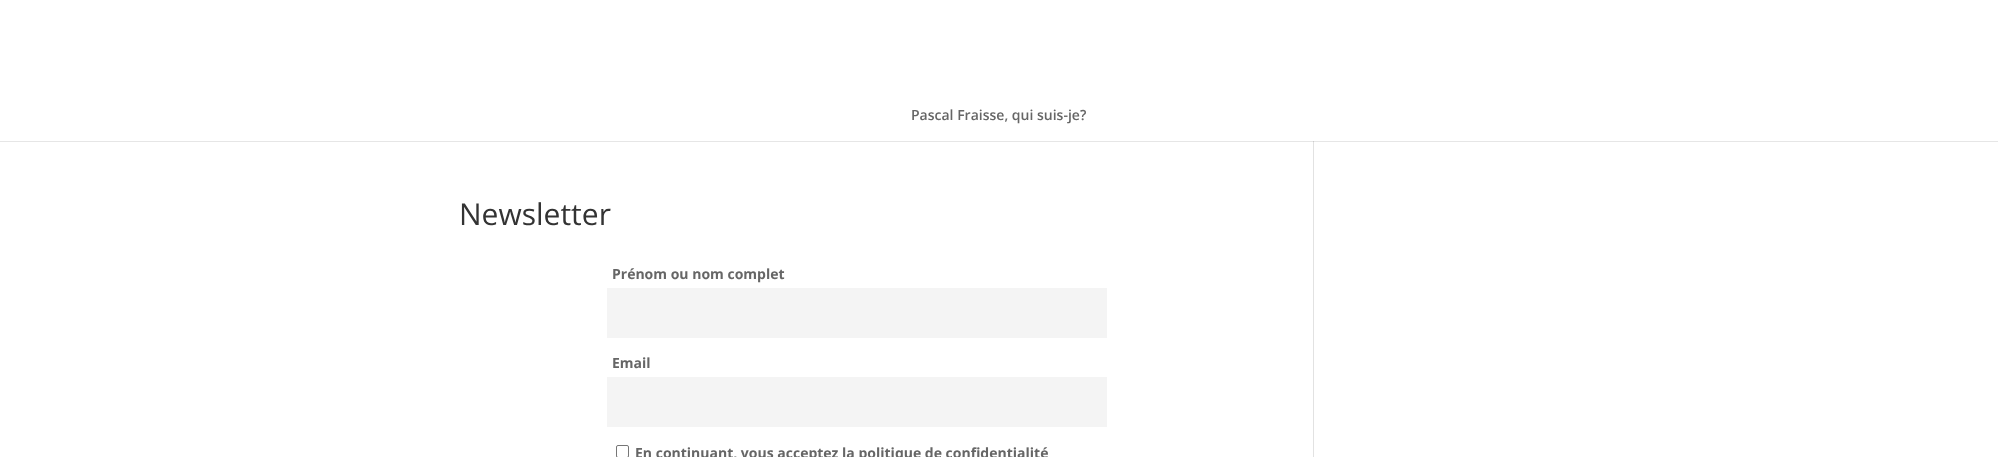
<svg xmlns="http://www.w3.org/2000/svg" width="1998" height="457">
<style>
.a{font:600 14px Open Sans;fill:#666}
.b{font:30px Open Sans;fill:#333}
.c{font:bold 14px Open Sans;fill:#666}
</style>
<rect width="100%" height="100%" fill="#fff"/>
<path fill="#e6e6e6" d="M0 141h1998v1H0z"/>
<path fill="#f4f4f4" d="M607 288h500v50H607z"/>
<path fill="#f4f4f4" d="M607 377h500v50H607z"/>
<rect fill="none" stroke="#767676" x="616.5" y="445.5" width="12" height="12" rx="1.5"/>
<path fill="#e2e2e2" d="M1313 141h1v316H1313z"/>
<path fill="#cbcbcb" d="M1313 141h1v1H1313z"/>
<text class="a" x="911" y="120">Pascal Fraisse, qui suis-je?</text>
<text class="b" x="459" y="225">Newsletter</text>
<text class="c" x="612" y="279">Prénom ou nom complet</text>
<text class="c" x="612" y="368">Email</text>
<text class="c" x="635" y="458">En continuant, vous acceptez la politique de confidentialité</text>
</svg>
